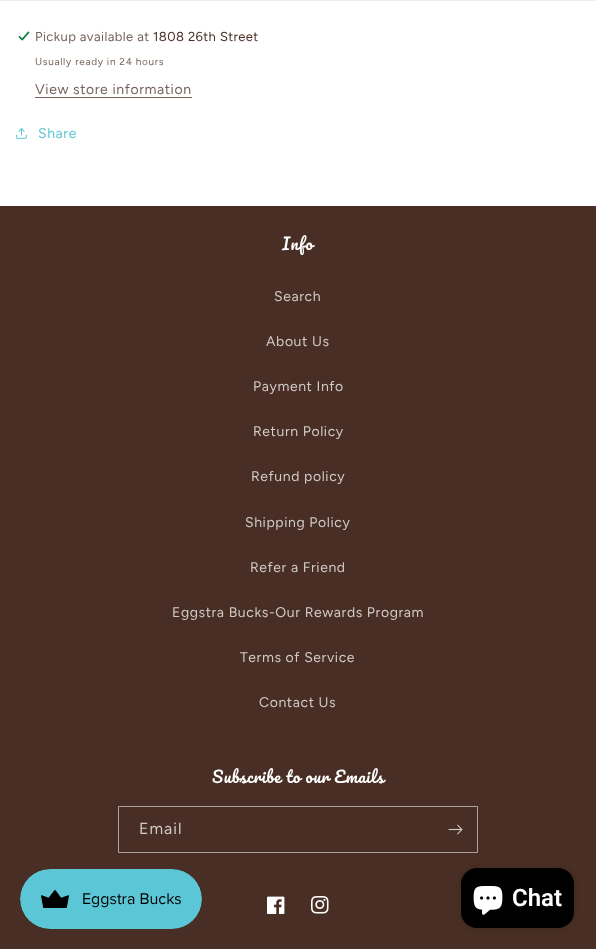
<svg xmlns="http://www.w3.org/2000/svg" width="596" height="949">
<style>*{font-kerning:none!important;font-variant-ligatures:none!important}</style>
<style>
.a{font:13px Figtree;letter-spacing:0.4px;fill:#76625b}
.b{font:13px Figtree;letter-spacing:0.4px;fill:#482e24}
.c{font:10px Figtree;letter-spacing:0.7px;fill:#76625b}
.d{font:14px Figtree;letter-spacing:0.6px;fill:#76625b}
.e{font:14px Figtree;letter-spacing:0.6px;fill:#5bc6d5}
.f{font:16px Pacifico;letter-spacing:0.6px;fill:#fff}
.g{font:14px Figtree;letter-spacing:0.6px;fill:#d1cbc8}
.h{font:16px Figtree;letter-spacing:1px;fill:#d1cbc8}
.i{font:600 24px Roboto;fill:#fff}
</style>
<rect width="100%" height="100%" fill="#fff"/>
<path fill="#f0eeed" d="M0 0h596v1H0z"/>
<image href="1.png" x="18" y="31" width="12" height="10"/>
<path fill="#76625b" d="M35 97h157v1H35z"/>
<image href="2.png" x="16" y="128" width="11" height="11"/>
<path fill="#482e24" d="M0 206h596v743H0z"/>
<path fill="none" stroke="#ada19c" d="M118.5 806.5h359v46H118.5z"/>
<image href="3.png" x="448" y="824" width="15" height="11"/>
<image href="4.png" x="267" y="896" width="18" height="18"/>
<image href="5.png" x="311" y="896" width="18" height="18"/>
<image href="6.png" x="20" y="869" width="182" height="60"/>
<rect fill="#00000026" filter="blur(2.5px)" x="461" y="868" width="113" height="60" rx="16"/>
<rect fill="#000" x="461" y="868" width="113" height="60" rx="16"/>
<image href="7.png" x="473" y="886" width="30" height="29"/>
<text class="a" x="35" y="41">Pickup available at</text>
<text class="b" x="153" y="41">1808 26th Street</text>
<text class="c" x="35" y="65">Usually ready in 24 hours</text>
<text class="d" x="35" y="94">View store information</text>
<text class="e" x="38" y="138">Share</text>
<text class="f" x="282" y="250">Info</text>
<text class="g" x="274" y="301">Search</text>
<text class="g" x="266" y="346">About Us</text>
<text class="g" x="253" y="391">Payment Info</text>
<text class="g" x="253" y="436">Return Policy</text>
<text class="g" x="251" y="481">Refund policy</text>
<text class="g" x="245" y="527">Shipping Policy</text>
<text class="g" x="250" y="572">Refer a Friend</text>
<text class="g" x="172" y="617">Eggstra Bucks-Our Rewards Program</text>
<text class="g" x="240" y="662">Terms of Service</text>
<text class="g" x="259" y="707">Contact Us</text>
<text class="f" x="212" y="783">Subscribe to our Emails</text>
<text class="h" x="139" y="834">Email</text>
<text class="i" x="512" y="906">Chat</text>
</svg>
